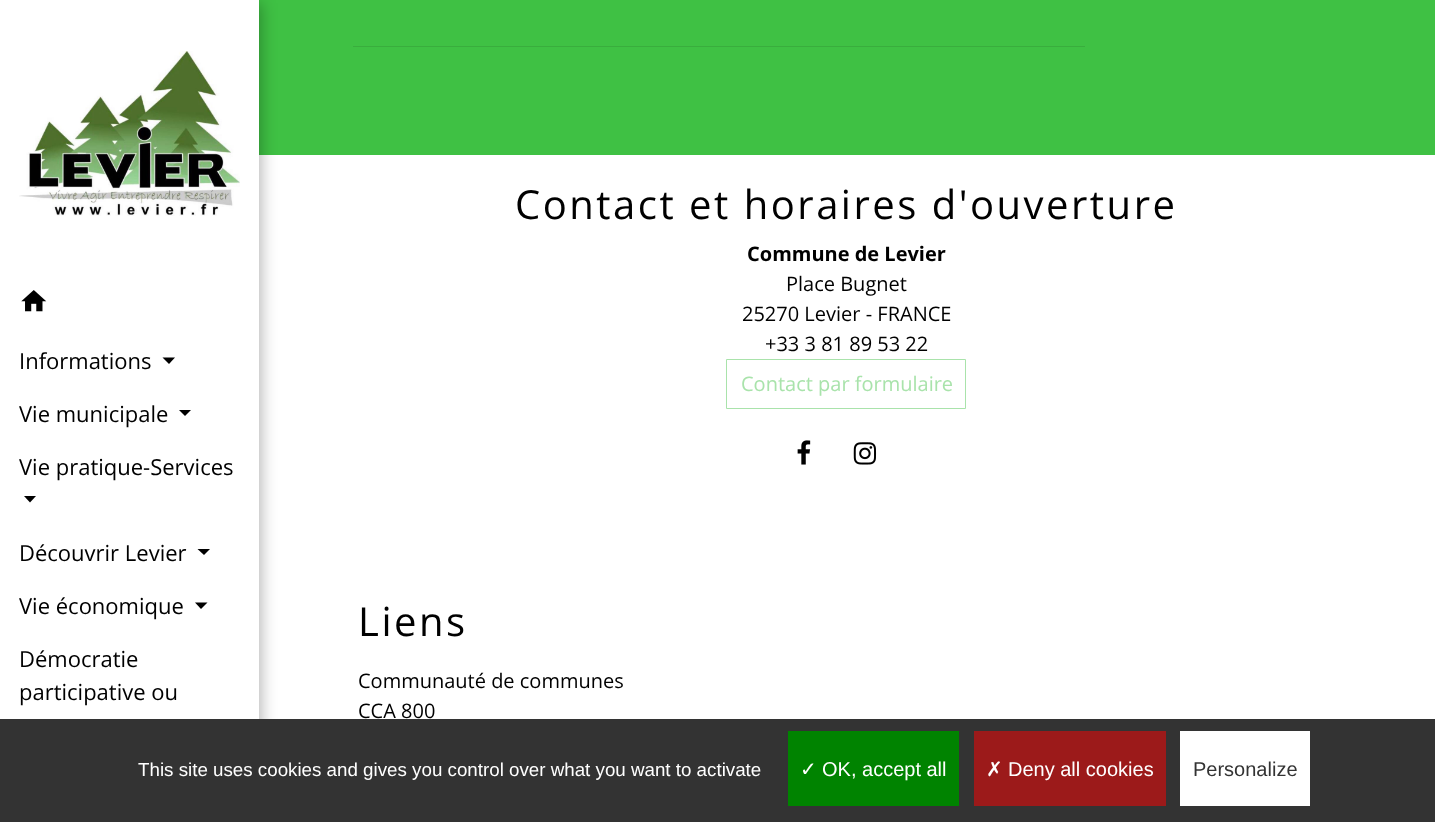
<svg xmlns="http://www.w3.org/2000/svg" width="1435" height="822">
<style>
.a{font:22px Open Sans;fill:#000}
.b{font:40px Open Sans;letter-spacing:2.5px;fill:#000}
.c{font:bold 20px Open Sans;fill:#000}
.d{font:20px Open Sans;fill:#000}
.e{font:20px Open Sans;fill:#a9e3ab}
.f{font:18.75px Liberation Sans;fill:#fff}
.g{font:20px DejaVu Sans;fill:#fff}
.h{font:20px Liberation Sans;fill:#fff}
.i{font:20px Liberation Sans;fill:#333}
</style>
<rect width="100%" height="100%" fill="#3fc144"/>
<path fill="#39ae3d" d="M353 46h732v1H353z"/>
<path fill="#fff" d="M259 155h1176v564H259z"/>
<path fill="#0000004d" filter="blur(8px)" d="M3 3h258v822H3z"/>
<path fill="#fff" d="M0 0h259v719H0z"/>
<image href="1.png" x="19" y="51" width="221" height="165"/>
<image href="2.png" x="21" y="290" width="26" height="22"/>
<path fill="#000" d="M162.5 357.5h12.5l-6 6.5z"/>
<path fill="#000" d="M179 410h12l-6 6z"/>
<path fill="#000" d="M24 496h12l-6 6.5z"/>
<path fill="#000" d="M197.5 549h12.5l-6 6z"/>
<path fill="#000" d="M195 602.5h12.5l-6.5 6.5z"/>
<path fill="none" stroke="#a9e3ab" d="M726.5 359.5h239v49H726.5z"/>
<image href="3.png" x="797" y="440" width="14" height="25"/>
<image href="4.png" x="853" y="442" width="24" height="23"/>
<path fill="#333" d="M0 719h1435v103H0z"/>
<path fill="#008300" d="M788 731h171v75H788z"/>
<path fill="#9c1a1a" d="M974 731h192v75H974z"/>
<path fill="#fff" d="M1180 731h130v75H1180z"/>
<text class="a" x="19" y="369">Informations</text>
<text class="a" x="19" y="422">Vie municipale</text>
<text class="a" x="19" y="475">Vie pratique-Services</text>
<text class="a" x="19" y="561">Découvrir Levier</text>
<text class="a" x="19" y="614">Vie économique</text>
<text class="a" x="19" y="667">Démocratie</text>
<text class="a" x="19" y="700">participative ou</text>
<text class="b" x="515" y="219">Contact et horaires d'ouverture</text>
<text class="c" x="747" y="261">Commune de Levier</text>
<text class="d" x="786" y="291">Place Bugnet</text>
<text class="d" x="742" y="321">25270 Levier - FRANCE</text>
<text class="d" x="765" y="351">+33 3 81 89 53 22</text>
<text class="e" x="741" y="391">Contact par formulaire</text>
<text class="b" x="358" y="636">Liens</text>
<text class="d" x="358" y="688">Communauté de communes</text>
<text class="d" x="358" y="718">CCA 800</text>
<text class="f" x="138" y="776">This site uses cookies and gives you control over what you want to activate</text>
<text class="g" x="800" y="776">✓</text>
<text class="h" x="822" y="776">OK, accept all</text>
<text class="g" x="986" y="776">✗</text>
<text class="h" x="1008" y="776">Deny all cookies</text>
<text class="i" x="1193" y="776">Personalize</text>
</svg>
